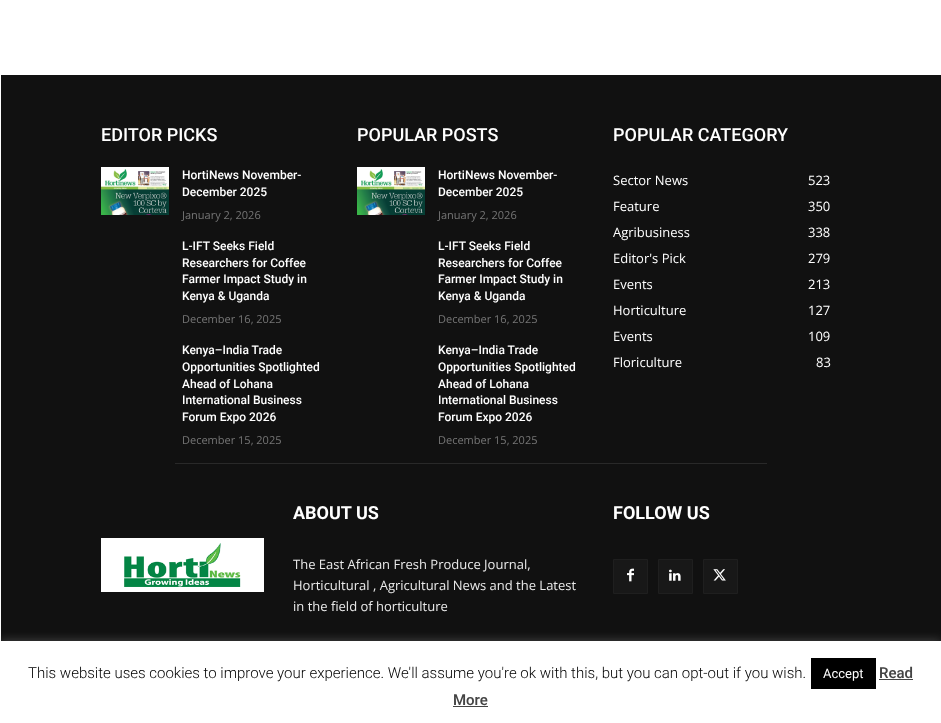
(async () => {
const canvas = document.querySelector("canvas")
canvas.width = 941
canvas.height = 723
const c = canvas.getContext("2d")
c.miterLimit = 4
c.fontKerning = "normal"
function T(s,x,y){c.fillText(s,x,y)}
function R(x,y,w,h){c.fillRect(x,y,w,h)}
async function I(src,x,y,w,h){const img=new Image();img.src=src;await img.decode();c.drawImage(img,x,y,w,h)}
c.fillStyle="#fff"
R(0,0,941,723)
c.fillStyle="#111"
R(1,75,940,566)
c.font="500 18px Roboto"
c.fillStyle="#fff"
T("EDITOR PICKS",101,141)
await I("1.png",101,167,68,48)
c.font="500 12px Roboto"
T("HortiNews November-",182,179)
T("December 2025",182,196)
c.font="11px Open Sans"
c.fillStyle="#767676"
T("January 2, 2026",182,219)
c.font="500 12px Roboto"
c.fillStyle="#fff"
T("L-IFT Seeks Field",182,250)
T("Researchers for Coffee",182,267)
T("Farmer Impact Study in",182,283)
T("Kenya & Uganda",182,300)
c.font="11px Open Sans"
c.fillStyle="#767676"
T("December 16, 2025",182,323)
c.font="500 12px Roboto"
c.fillStyle="#fff"
T("Kenya–India Trade",182,354)
T("Opportunities Spotlighted",182,371)
T("Ahead of Lohana",182,388)
T("International Business",182,404)
T("Forum Expo 2026",182,421)
c.font="11px Open Sans"
c.fillStyle="#767676"
T("December 15, 2025",182,444)
c.font="500 18px Roboto"
c.fillStyle="#fff"
T("POPULAR POSTS",357,141)
await I("1.png",357,167,68,48)
c.font="500 12px Roboto"
T("HortiNews November-",438,179)
T("December 2025",438,196)
c.font="11px Open Sans"
c.fillStyle="#767676"
T("January 2, 2026",438,219)
c.font="500 12px Roboto"
c.fillStyle="#fff"
T("L-IFT Seeks Field",438,250)
T("Researchers for Coffee",438,267)
T("Farmer Impact Study in",438,283)
T("Kenya & Uganda",438,300)
c.font="11px Open Sans"
c.fillStyle="#767676"
T("December 16, 2025",438,323)
c.font="500 12px Roboto"
c.fillStyle="#fff"
T("Kenya–India Trade",438,354)
T("Opportunities Spotlighted",438,371)
T("Ahead of Lohana",438,388)
T("International Business",438,404)
T("Forum Expo 2026",438,421)
c.font="11px Open Sans"
c.fillStyle="#767676"
T("December 15, 2025",438,444)
c.font="500 18px Roboto"
c.fillStyle="#fff"
T("POPULAR CATEGORY",613,141)
c.font="13px Open Sans"
T("Sector News",613,185)
T("523",808,185)
T("Feature",613,211)
T("350",808,211)
T("Agribusiness",613,237)
T("338",808,237)
T("Editor's Pick",613,263)
T("279",808,263)
T("Events",613,289)
T("213",808,289)
T("Horticulture",613,315)
T("127",808,315)
T("Events",613,341)
T("109",808,341)
T("Floriculture",613,367)
T("83",816,367)
c.fillStyle="#292929"
R(175,463,592,1)
c.font="bold 18px Roboto"
c.fillStyle="#fff"
T("ABOUT US",293,519)
c.font="13px Open Sans"
c.fillStyle="#eaeaea"
T("The East African Fresh Produce Journal,",293,569)
T("Horticultural , Agricultural News and the Latest",293,590)
T("in the field of horticulture",293,611)
c.font="bold 18px Roboto"
c.fillStyle="#fff"
T("FOLLOW US",613,519)
c.fillStyle="#181818"
c.beginPath()
c.rect(613.5,559.5,34,34)
c.fill()
c.strokeStyle="#1f1f1f"
c.stroke()
await I("2.png",627,568,7,14)
c.beginPath()
c.rect(658.5,559.5,34,34)
c.fill()
c.stroke()
await I("3.png",669,569,12,12)
c.beginPath()
c.rect(703.5,559.5,34,34)
c.fill()
c.stroke()
await I("4.png",713,569,13,12)
await I("5.png",101,538,163,54)
c.fillStyle="#acabab4d"
c.filter="blur(5px)"
c.beginPath()
c.rect(0,640,941,82)
c.fill()
c.filter="none"
c.fillStyle="#fff"
R(0,641,941,82)
c.font="300 15px Roboto"
c.fillStyle="#000"
T("This website uses cookies to improve your experience. We'll assume you're ok with this, but you can opt-out if you wish.",28,678)
R(811,658,65,31)
c.font="13px Roboto"
c.fillStyle="#fff"
T("Accept",823,678)
c.font="500 15px 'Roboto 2'"
c.fillStyle="#444"
T("Read",879,678)
R(879,679,34,1)
T("More",453,705)
R(453,706,35,1)
})()
